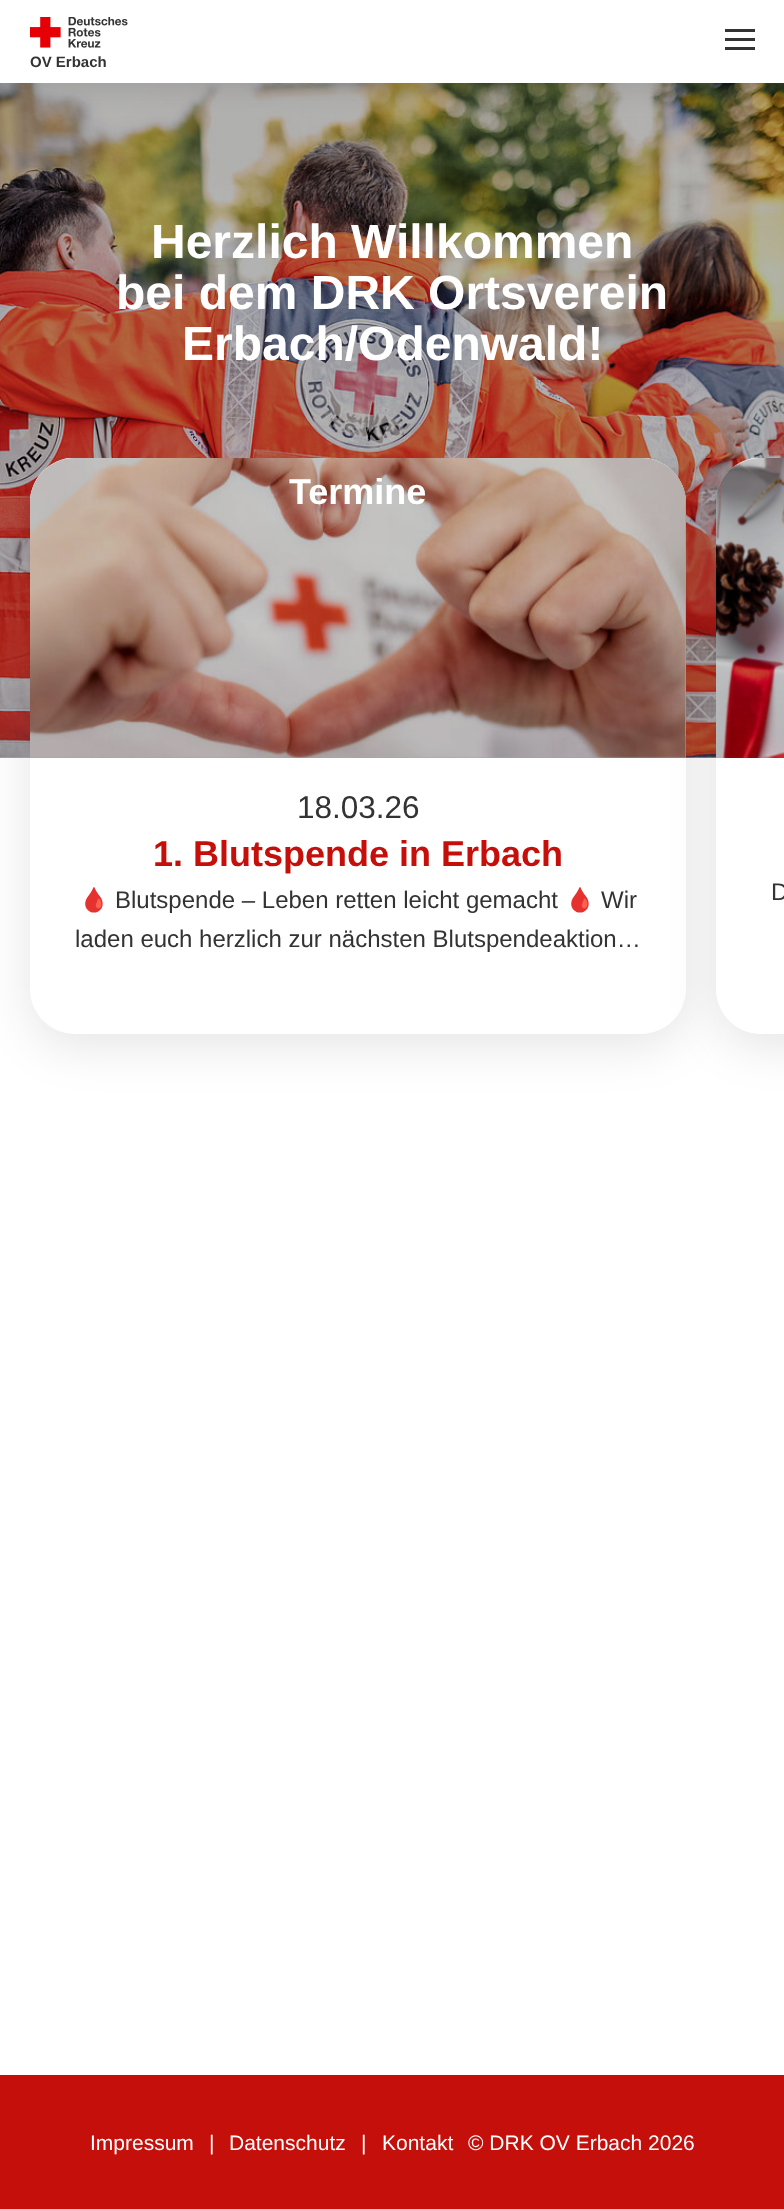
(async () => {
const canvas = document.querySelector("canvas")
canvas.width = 784
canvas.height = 2209
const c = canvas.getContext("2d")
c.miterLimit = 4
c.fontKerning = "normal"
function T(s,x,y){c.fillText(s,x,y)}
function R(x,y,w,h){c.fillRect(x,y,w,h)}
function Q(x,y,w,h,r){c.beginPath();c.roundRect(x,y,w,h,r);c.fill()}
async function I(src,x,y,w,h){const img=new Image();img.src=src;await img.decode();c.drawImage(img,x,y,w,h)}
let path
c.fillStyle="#fff"
R(0,0,784,2209)
c.fillStyle="#b3b3b3"
R(0,757,716,1)
await I("2.png",0,83,784,675)
c.fillStyle="#0000001a"
c.filter="blur(12px)"
c.beginPath()
c.rect(0,8,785,82)
c.fill()
c.filter="none"
c.fillStyle="#fff"
R(0,0,784,83)
c.fillStyle="#333"
R(725,29,30,3)
R(725,38,30,3)
R(725,47,30,3)
await I("1.png",30,17,98,31)
c.font="bold 15px Liberation Sans"
T("OV Erbach",30,67)
c.font="bold 48px Liberation Sans"
c.fillStyle="#fff"
T("Herzlich Willkommen",151,258)
T("bei dem DRK Ortsverein",116,309)
T("Erbach/Odenwald!",182,360)
c.save()
c.beginPath()
c.rect(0,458,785,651)
c.clip()
c.fillStyle="#0000001a"
c.filter="blur(24px)"
c.beginPath()
c.roundRect(30,470,656,576,45)
c.fill()
c.filter="none"
c.restore()
Q(30,458,656,576,45)
c.fillStyle="#ccc"
c.beginPath()
c.roundRect(30,458,656,300,[45,45,0,0])
c.fill()
await I("3.png",30,458,656,300)
c.fillStyle="#00000033"
c.beginPath()
c.roundRect(30,458,656,300,[45,45,0,0])
c.fill()
c.font="bold 36px Liberation Sans"
c.fillStyle="#fff"
T("Termine",289,504)
c.font="31.5px Liberation Sans"
c.fillStyle="#333"
T("18.03.26",297,818)
c.font="bold 36px Liberation Sans"
c.fillStyle="#c50f0a"
T("1. Blutspende in Erbach",153,866)
c.font="24px Noto Color Emoji"
c.fillStyle="#333"
T("🩸",79,908)
c.font="24px Liberation Sans"
T("Blutspende – Leben retten leicht gemacht",115,908)
c.font="24px Noto Color Emoji"
T("🩸",565,908)
c.font="24px Liberation Sans"
T("Wir",601,908)
T("laden euch herzlich zur nächsten Blutspendeaktion…",75,947)
c.save()
c.beginPath()
c.rect(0,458,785,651)
c.clip()
c.fillStyle="#0000001a"
c.filter="blur(24px)"
c.beginPath()
c.roundRect(716,470,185,576,45)
c.fill()
c.filter="none"
c.restore()
c.fillStyle="#fff"
path = new Path2D("M761 458h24v576h-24c-25 0-45-20-45-45v-486c0-25 20-45 45-45z")
c.fill(path)
await I("4.png",716,458,68,300)
c.fillStyle="#00000033"
path = new Path2D("M761 458h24v300h-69v-255c0-25 20-45 45-45z")
c.fill(path)
c.fillStyle="#333"
T("D",771,900)
c.fillStyle="#c50f0a"
R(0,2075,784,134)
c.font="21px Liberation Sans"
c.fillStyle="#fff"
T("Impressum",90,2150)
T("|",209,2150)
T("Datenschutz",229,2150)
T("|",361,2150)
T("Kontakt",382,2150)
T("© DRK OV Erbach 2026",468,2150)
})()
